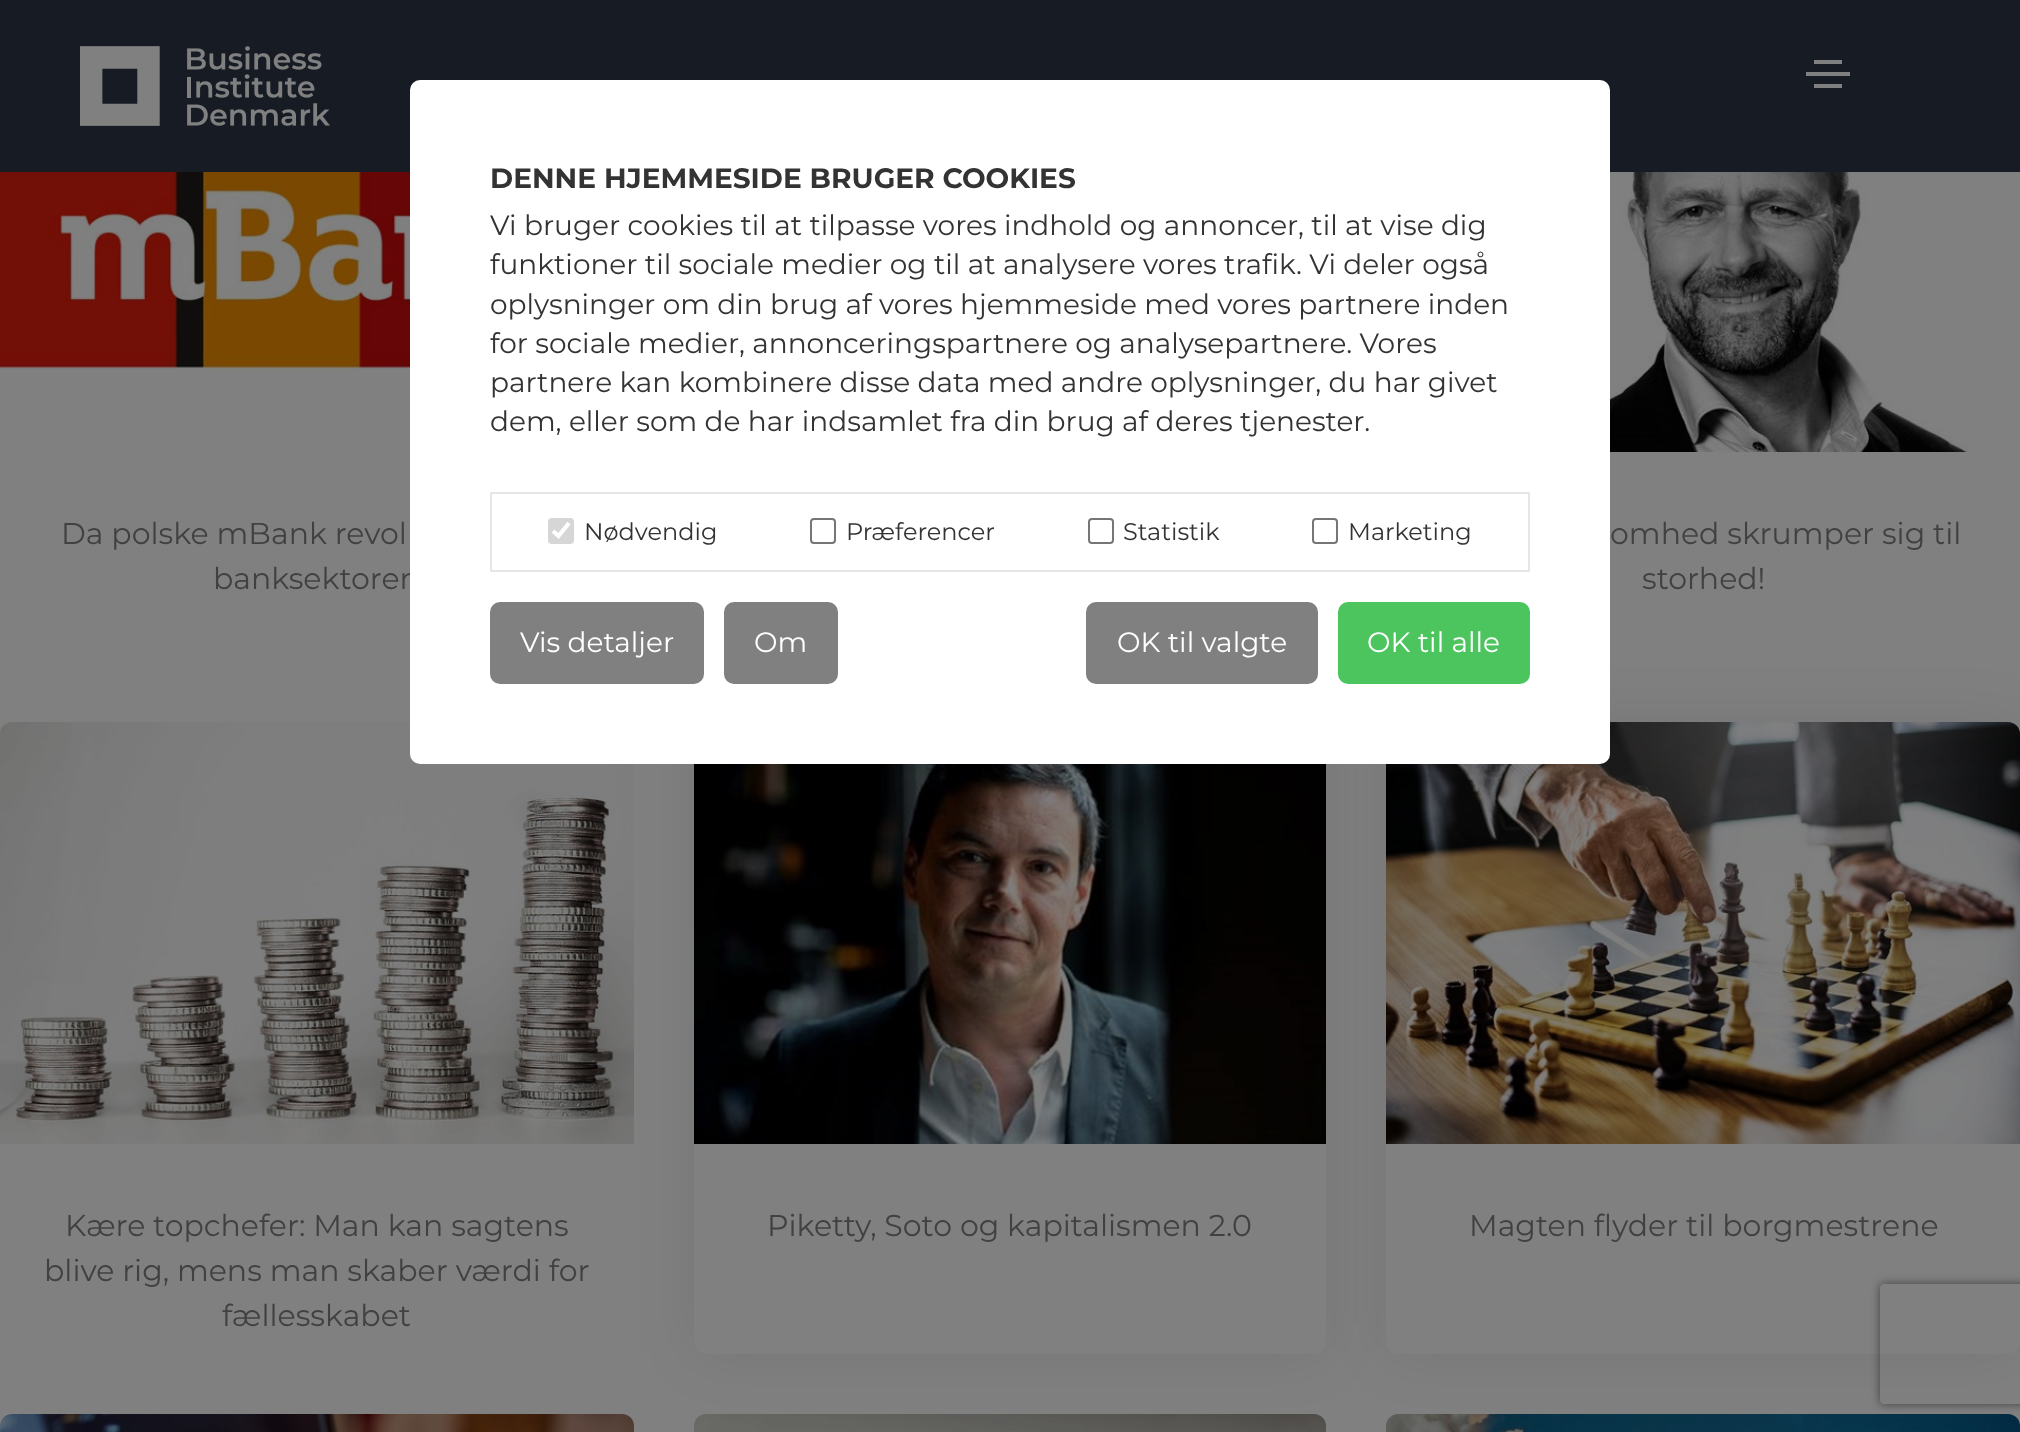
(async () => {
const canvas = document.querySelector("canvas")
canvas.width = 2020
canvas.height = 1432
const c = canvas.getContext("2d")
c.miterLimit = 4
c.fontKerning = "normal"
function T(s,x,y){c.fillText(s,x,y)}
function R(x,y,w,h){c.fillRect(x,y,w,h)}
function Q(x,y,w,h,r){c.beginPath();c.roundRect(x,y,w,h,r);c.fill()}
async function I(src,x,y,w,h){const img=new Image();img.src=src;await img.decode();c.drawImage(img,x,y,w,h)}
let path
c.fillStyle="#808080"
R(0,0,2020,1432)
c.fillStyle="#161b24"
R(0,0,2020,172)
await I("1.png",80,46,250,80)
c.fillStyle="#808080"
R(1814,60,28,4)
R(1806,72,44,4)
R(1814,84,28,4)
c.font="30px Montserrat"
c.fillStyle="#414141"
T("banksektoren",213,589)
await I("4.png",0,722,634,422)
c.fillStyle="#00000014"
c.filter="blur(30px)"
c.beginPath()
c.roundRect(694,722,632,632,12)
c.fill()
c.filter="none"
await I("5.png",694,764,632,380)
c.fillStyle="#808080"
c.beginPath()
c.roundRect(694,1144,632,210,[0,0,12,12])
c.fill()
c.fillStyle="#00000014"
c.filter="blur(30px)"
c.beginPath()
c.roundRect(1386,722,634,632,12)
c.fill()
c.filter="none"
await I("6.png",1386,722,634,422)
c.fillStyle="#fff"
Q(410,80,1200,684,10)
c.font="bold 28px Montserrat"
c.fillStyle="#333"
T("DENNE HJEMMESIDE BRUGER COOKIES",490,188)
c.font="28px Montserrat"
T("Vi bruger cookies til at tilpasse vores indhold og annoncer, til at vise dig",490,235)
T("funktioner til sociale medier og til at analysere vores trafik. Vi deler også",490,274)
T("oplysninger om din brug af vores hjemmeside med vores partnere inden",490,314)
T("for sociale medier, annonceringspartnere og analysepartnere. Vores",490,353)
T("partnere kan kombinere disse data med andre oplysninger, du har givet",490,392)
T("dem, eller som de har indsamlet fra din brug af deres tjenester.",490,431)
c.strokeStyle="#e6e6e6"
c.lineWidth=2
c.strokeRect(491,493,1038,78)
c.fillStyle="#d6d6d6"
Q(548,518,26,26,4)
path = new Path2D("M553 531l5.5 5l10.5-13")
c.strokeStyle="#fff"
c.lineWidth=4.2
c.stroke(path)
c.font="24px Montserrat"
c.fillStyle="#333"
T("Nødvendig",584,540)
c.beginPath()
c.roundRect(811,519,24,24,3)
c.strokeStyle="#767676"
c.lineWidth=2
c.stroke()
T("Præferencer",846,540)
c.beginPath()
c.roundRect(1089,519,24,24,3)
c.stroke()
T("Statistik",1123,540)
c.beginPath()
c.roundRect(1313,519,24,24,3)
c.stroke()
T("Marketing",1348,540)
c.fillStyle="#808080"
Q(490,602,214,82,10)
c.font="28px Montserrat"
c.fillStyle="#fff"
T("Vis detaljer",520,652)
c.fillStyle="#808080"
Q(724,602,114,82,10)
c.fillStyle="#fff"
T("Om",754,652)
c.fillStyle="#808080"
Q(1086,602,232,82,10)
c.fillStyle="#fff"
T("OK til valgte",1117,652)
c.fillStyle="#4dc55f"
Q(1338,602,192,82,10)
c.fillStyle="#fff"
T("OK til alle",1367,652)
await I("2.png",0,172,410,197)
c.font="30px Montserrat"
c.fillStyle="#414141"
T("Da polske mBank revol",61,544)
await I("3.png",1610,172,359,280)
T("omhed skrumper sig til",1610,544)
T("storhed!",1642,589)
T("Kære topchefer: Man kan sagtens",65,1236)
T("blive rig, mens man skaber værdi for",44,1281)
T("fællesskabet",222,1326)
T("Piketty, Soto og kapitalismen 2.0",767,1236)
c.fillStyle="#808080"
c.beginPath()
c.roundRect(1386,1144,634,210,[0,0,12,12])
c.fill()
c.fillStyle="#414141"
T("Magten flyder til borgmestrene",1469,1236)
await I("7.png",0,1414,634,18)
await I("8.png",694,1414,632,18)
await I("9.png",1386,1414,634,18)
c.save()
path = new Path2D("M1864 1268h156v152h-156zm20 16h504c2 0 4 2 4 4v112c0 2-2 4-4 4h-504c-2 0-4-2-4-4v-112c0-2 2-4 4-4z")
c.clip(path,"evenodd")
c.fillStyle="#404040"
c.filter="blur(5px)"
c.beginPath()
c.roundRect(1880,1284,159,120,4)
c.fill()
c.filter="none"
c.restore()
})()
